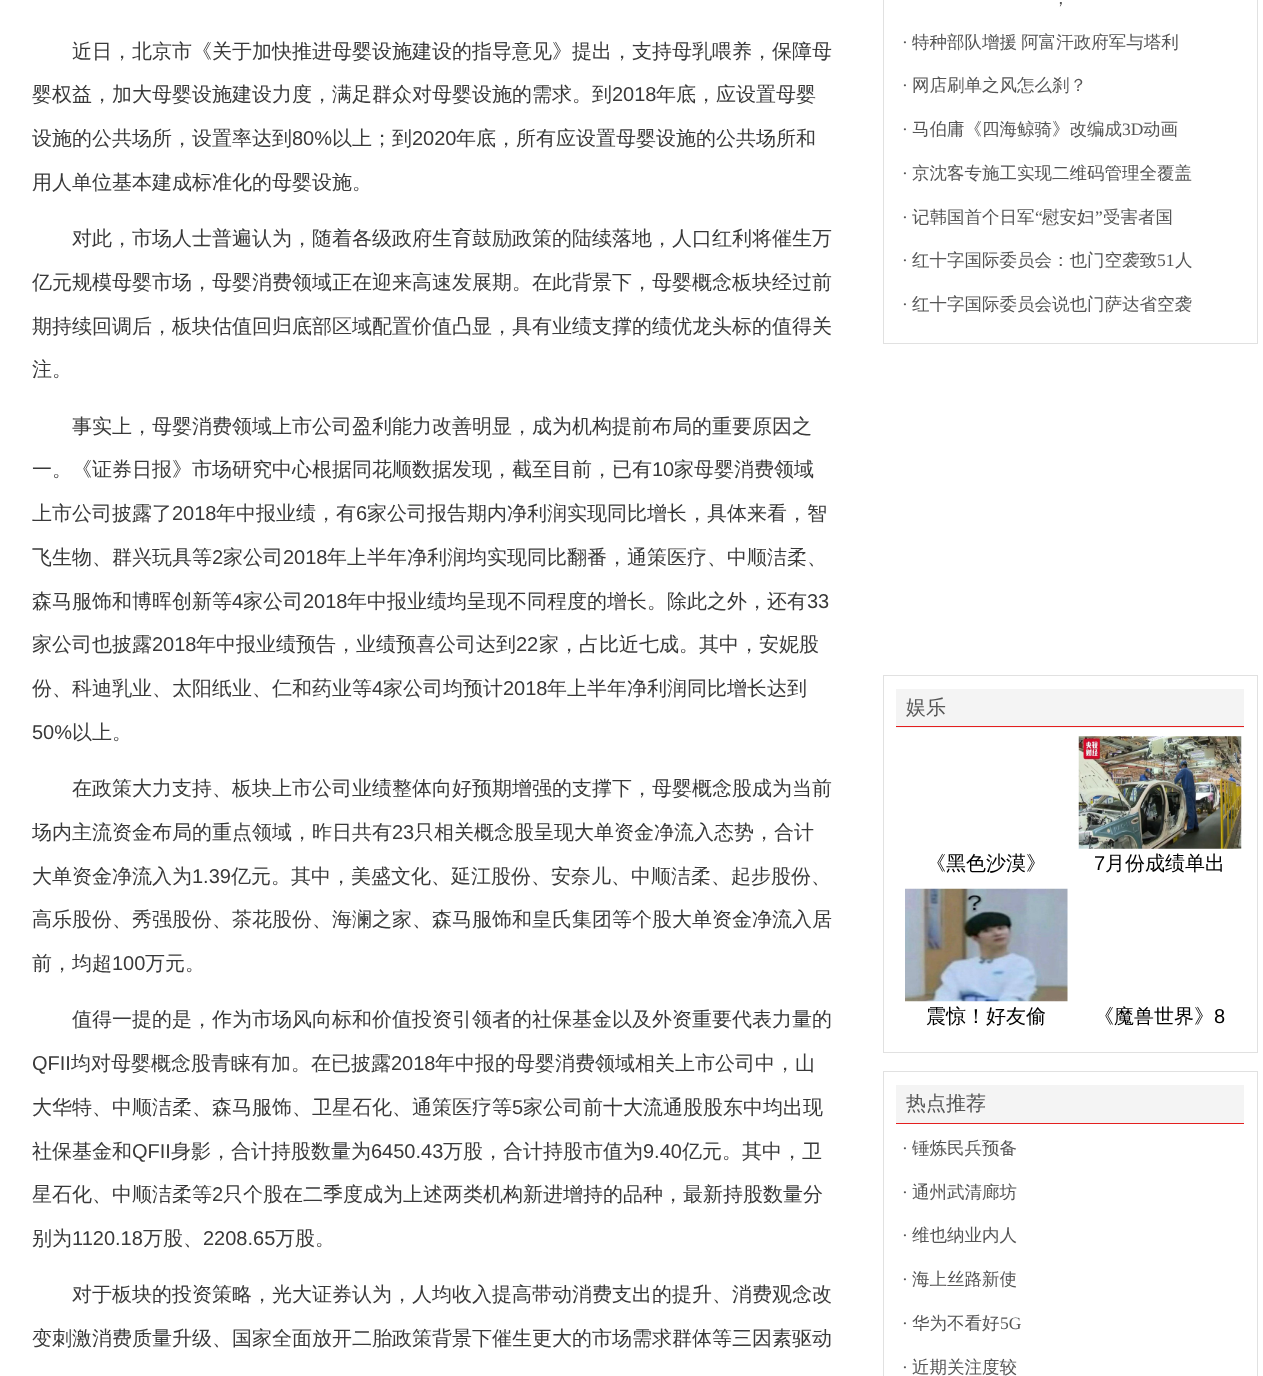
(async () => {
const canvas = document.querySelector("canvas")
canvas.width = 1263
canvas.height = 1376
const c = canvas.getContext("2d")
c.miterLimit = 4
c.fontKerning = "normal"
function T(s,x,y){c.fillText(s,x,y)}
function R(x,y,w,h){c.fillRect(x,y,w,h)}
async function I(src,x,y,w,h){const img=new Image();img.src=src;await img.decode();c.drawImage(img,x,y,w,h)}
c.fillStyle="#fff"
R(0,0,1263,1376)
c.font="500 20px WenQuanYi Zen Hei"
c.fillStyle="#393939"
T("近日，北京市《关于加快推进母婴设施建设的指导意见》提出，支持母乳喂养，保障母",72,58)
T("婴权益，加大母婴设施建设力度，满足群众对母婴设施的需求。到",32,101)
c.font="20px Liberation Sans"
T("2018",612,101)
c.font="500 20px WenQuanYi Zen Hei"
T("年底，应设置母婴",656,101)
T("设施的公共场所，设置率达到",32,145)
c.font="20px Liberation Sans"
T("80%",292,145)
c.font="500 20px WenQuanYi Zen Hei"
T("以上；到",332,145)
c.font="20px Liberation Sans"
T("2020",412,145)
c.font="500 20px WenQuanYi Zen Hei"
T("年底，所有应设置母婴设施的公共场所和",456,145)
T("用人单位基本建成标准化的母婴设施。",32,189)
T("对此，市场人士普遍认为，随着各级政府生育鼓励政策的陆续落地，人口红利将催生万",72,245)
T("亿元规模母婴市场，母婴消费领域正在迎来高速发展期。在此背景下，母婴概念板块经过前",32,289)
T("期持续回调后，板块估值回归底部区域配置价值凸显，具有业绩支撑的绩优龙头标的值得关",32,333)
T("注。",32,376)
T("事实上，母婴消费领域上市公司盈利能力改善明显，成为机构提前布局的重要原因之",72,433)
T("一。《证券日报》市场研究中心根据同花顺数据发现，截至目前，已有",32,476)
c.font="20px Liberation Sans"
T("10",652,476)
c.font="500 20px WenQuanYi Zen Hei"
T("家母婴消费领域",674,476)
T("上市公司披露了",32,520)
c.font="20px Liberation Sans"
T("2018",172,520)
c.font="500 20px WenQuanYi Zen Hei"
T("年中报业绩，有",216,520)
c.font="20px Liberation Sans"
T("6",356,520)
c.font="500 20px WenQuanYi Zen Hei"
T("家公司报告期内净利润实现同比增长，具体来看，智",367,520)
T("飞生物、群兴玩具等",32,564)
c.font="20px Liberation Sans"
T("2",212,564)
c.font="500 20px WenQuanYi Zen Hei"
T("家公司",223,564)
c.font="20px Liberation Sans"
T("2018",283,564)
c.font="500 20px WenQuanYi Zen Hei"
T("年上半年净利润均实现同比翻番，通策医疗、中顺洁柔、",327,564)
T("森马服饰和博晖创新等",32,608)
c.font="20px Liberation Sans"
T("4",232,608)
c.font="500 20px WenQuanYi Zen Hei"
T("家公司",243,608)
c.font="20px Liberation Sans"
T("2018",303,608)
c.font="500 20px WenQuanYi Zen Hei"
T("年中报业绩均呈现不同程度的增长。除此之外，还有",347,608)
c.font="20px Liberation Sans"
T("33",807,608)
c.font="500 20px WenQuanYi Zen Hei"
T("家公司也披露",32,651)
c.font="20px Liberation Sans"
T("2018",152,651)
c.font="500 20px WenQuanYi Zen Hei"
T("年中报业绩预告，业绩预喜公司达到",196,651)
c.font="20px Liberation Sans"
T("22",516,651)
c.font="500 20px WenQuanYi Zen Hei"
T("家，占比近七成。其中，安妮股",539,651)
T("份、科迪乳业、太阳纸业、仁和药业等",32,695)
c.font="20px Liberation Sans"
T("4",372,695)
c.font="500 20px WenQuanYi Zen Hei"
T("家公司均预计",383,695)
c.font="20px Liberation Sans"
T("2018",503,695)
c.font="500 20px WenQuanYi Zen Hei"
T("年上半年净利润同比增长达到",547,695)
c.font="20px Liberation Sans"
T("50%",32,739)
c.font="500 20px WenQuanYi Zen Hei"
T("以上。",72,739)
T("在政策大力支持、板块上市公司业绩整体向好预期增强的支撑下，母婴概念股成为当前",72,795)
T("场内主流资金布局的重点领域，昨日共有",32,839)
c.font="20px Liberation Sans"
T("23",392,839)
c.font="500 20px WenQuanYi Zen Hei"
T("只相关概念股呈现大单资金净流入态势，合计",414,839)
T("大单资金净流入为",32,883)
c.font="20px Liberation Sans"
T("1.39",192,883)
c.font="500 20px WenQuanYi Zen Hei"
T("亿元。其中，美盛文化、延江股份、安奈儿、中顺洁柔、起步股份、",231,883)
T("高乐股份、秀强股份、茶花股份、海澜之家、森马服饰和皇氏集团等个股大单资金净流入居",32,926)
T("前，均超",32,970)
c.font="20px Liberation Sans"
T("100",112,970)
c.font="500 20px WenQuanYi Zen Hei"
T("万元。",145,970)
T("值得一提的是，作为市场风向标和价值投资引领者的社保基金以及外资重要代表力量的",72,1026)
c.font="20px Liberation Sans"
T("QFII",32,1070)
c.font="500 20px WenQuanYi Zen Hei"
T("均对母婴概念股青睐有加。在已披露",71,1070)
c.font="20px Liberation Sans"
T("2018",391,1070)
c.font="500 20px WenQuanYi Zen Hei"
T("年中报的母婴消费领域相关上市公司中，山",435,1070)
T("大华特、中顺洁柔、森马服饰、卫星石化、通策医疗等",32,1114)
c.font="20px Liberation Sans"
T("5",512,1114)
c.font="500 20px WenQuanYi Zen Hei"
T("家公司前十大流通股股东中均出现",523,1114)
T("社保基金和",32,1158)
c.font="20px Liberation Sans"
T("QFII",132,1158)
c.font="500 20px WenQuanYi Zen Hei"
T("身影，合计持股数量为",171,1158)
c.font="20px Liberation Sans"
T("6450.43",371,1158)
c.font="500 20px WenQuanYi Zen Hei"
T("万股，合计持股市值为",443,1158)
c.font="20px Liberation Sans"
T("9.40",643,1158)
c.font="500 20px WenQuanYi Zen Hei"
T("亿元。其中，卫",682,1158)
T("星石化、中顺洁柔等",32,1201)
c.font="20px Liberation Sans"
T("2",212,1201)
c.font="500 20px WenQuanYi Zen Hei"
T("只个股在二季度成为上述两类机构新进增持的品种，最新持股数量分",223,1201)
T("别为",32,1245)
c.font="20px Liberation Sans"
T("1120.18",72,1245)
c.font="500 20px WenQuanYi Zen Hei"
T("万股、",143,1245)
c.font="20px Liberation Sans"
T("2208.65",203,1245)
c.font="500 20px WenQuanYi Zen Hei"
T("万股。",275,1245)
T("对于板块的投资策略，光大证券认为，人均收入提高带动消费支出的提升、消费观念改",72,1301)
T("变刺激消费质量升级、国家全面放开二胎政策背景下催生更大的市场需求群体等三因素驱动",32,1345)
c.strokeStyle="#e1e1e1"
c.strokeRect(883.5,-.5,374,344)
c.font="500 17.5px WenQuanYi Zen Hei"
c.fillStyle="#555"
T("，",1052,4)
c.font="17.5px Liberation Serif"
T("·",902,48)
c.wordSpacing="-1px"
c.font="500 17.5px WenQuanYi Zen Hei"
T("特种部队增援 阿富汗政府军与塔利",912,48)
c.wordSpacing="0px"
c.font="17.5px Liberation Serif"
T("·",902,91)
c.font="500 17.5px WenQuanYi Zen Hei"
T("网店刷单之风怎么刹？",912,91)
c.font="17.5px Liberation Serif"
T("·",902,135)
c.font="500 17.5px WenQuanYi Zen Hei"
T("马伯庸《四海鲸骑》改编成",912,135)
c.font="17.5px Liberation Serif"
T("3D",1122,135)
c.font="500 17.5px WenQuanYi Zen Hei"
T("动画",1143,135)
c.font="17.5px Liberation Serif"
T("·",902,179)
c.font="500 17.5px WenQuanYi Zen Hei"
T("京沈客专施工实现二维码管理全覆盖",912,179)
T("记韩国首个日军",912,223)
c.font="17.5px Liberation Serif"
T("“",1035,223)
c.font="500 17.5px WenQuanYi Zen Hei"
T("慰安妇",1042,223)
c.font="17.5px Liberation Serif"
T("”",1095,223)
c.font="500 17.5px WenQuanYi Zen Hei"
T("受害者国",1103,223)
c.font="17.5px Liberation Serif"
T("·",902,223)
T("·",902,266)
c.font="500 17.5px WenQuanYi Zen Hei"
T("红十字国际委员会：也门空袭致",912,266)
c.font="17.5px Liberation Serif"
T("51",1157,266)
c.font="500 17.5px WenQuanYi Zen Hei"
T("人",1175,266)
c.font="17.5px Liberation Serif"
T("·",902,310)
c.font="500 17.5px WenQuanYi Zen Hei"
T("红十字国际委员会说也门萨达省空袭",912,310)
c.strokeRect(883.5,675.5,374,377)
c.fillStyle="#f4f4f4"
R(896,689,348,39)
c.fillStyle="#e41f1f"
R(896,726,348,1)
c.font="500 20px WenQuanYi Zen Hei"
c.fillStyle="#555"
T("娱乐",906,714)
c.fillStyle="#000"
T("《黑色沙漠》",926,870)
await I("1.png",1078,736,164,113)
c.font="20px Liberation Sans"
T("7",1094,870)
c.font="500 20px WenQuanYi Zen Hei"
T("月份成绩单出",1105,870)
await I("2.png",905,888,163,114)
T("震惊！好友偷",926,1023)
T("《魔兽世界》",1094,1023)
c.font="20px Liberation Sans"
T("8",1214,1023)
c.strokeRect(883.5,1071.5,374,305)
c.fillStyle="#f4f4f4"
R(896,1085,348,38)
c.fillStyle="#e41f1f"
R(896,1123,348,1)
c.font="500 20px WenQuanYi Zen Hei"
c.fillStyle="#555"
T("热点推荐",906,1110)
c.font="17.5px Liberation Serif"
T("·",902,1154)
c.font="500 17.5px WenQuanYi Zen Hei"
T("锤炼民兵预备",912,1154)
c.font="17.5px Liberation Serif"
T("·",902,1198)
c.font="500 17.5px WenQuanYi Zen Hei"
T("通州武清廊坊",912,1198)
c.font="17.5px Liberation Serif"
T("·",902,1241)
c.font="500 17.5px WenQuanYi Zen Hei"
T("维也纳业内人",912,1241)
c.font="17.5px Liberation Serif"
T("·",902,1285)
c.font="500 17.5px WenQuanYi Zen Hei"
T("海上丝路新使",912,1285)
c.font="17.5px Liberation Serif"
T("·",902,1329)
c.font="500 17.5px WenQuanYi Zen Hei"
T("华为不看好",912,1329)
c.font="17.5px Liberation Serif"
T("5G",1000,1329)
T("·",902,1373)
c.font="500 17.5px WenQuanYi Zen Hei"
T("近期关注度较",912,1373)
})()
